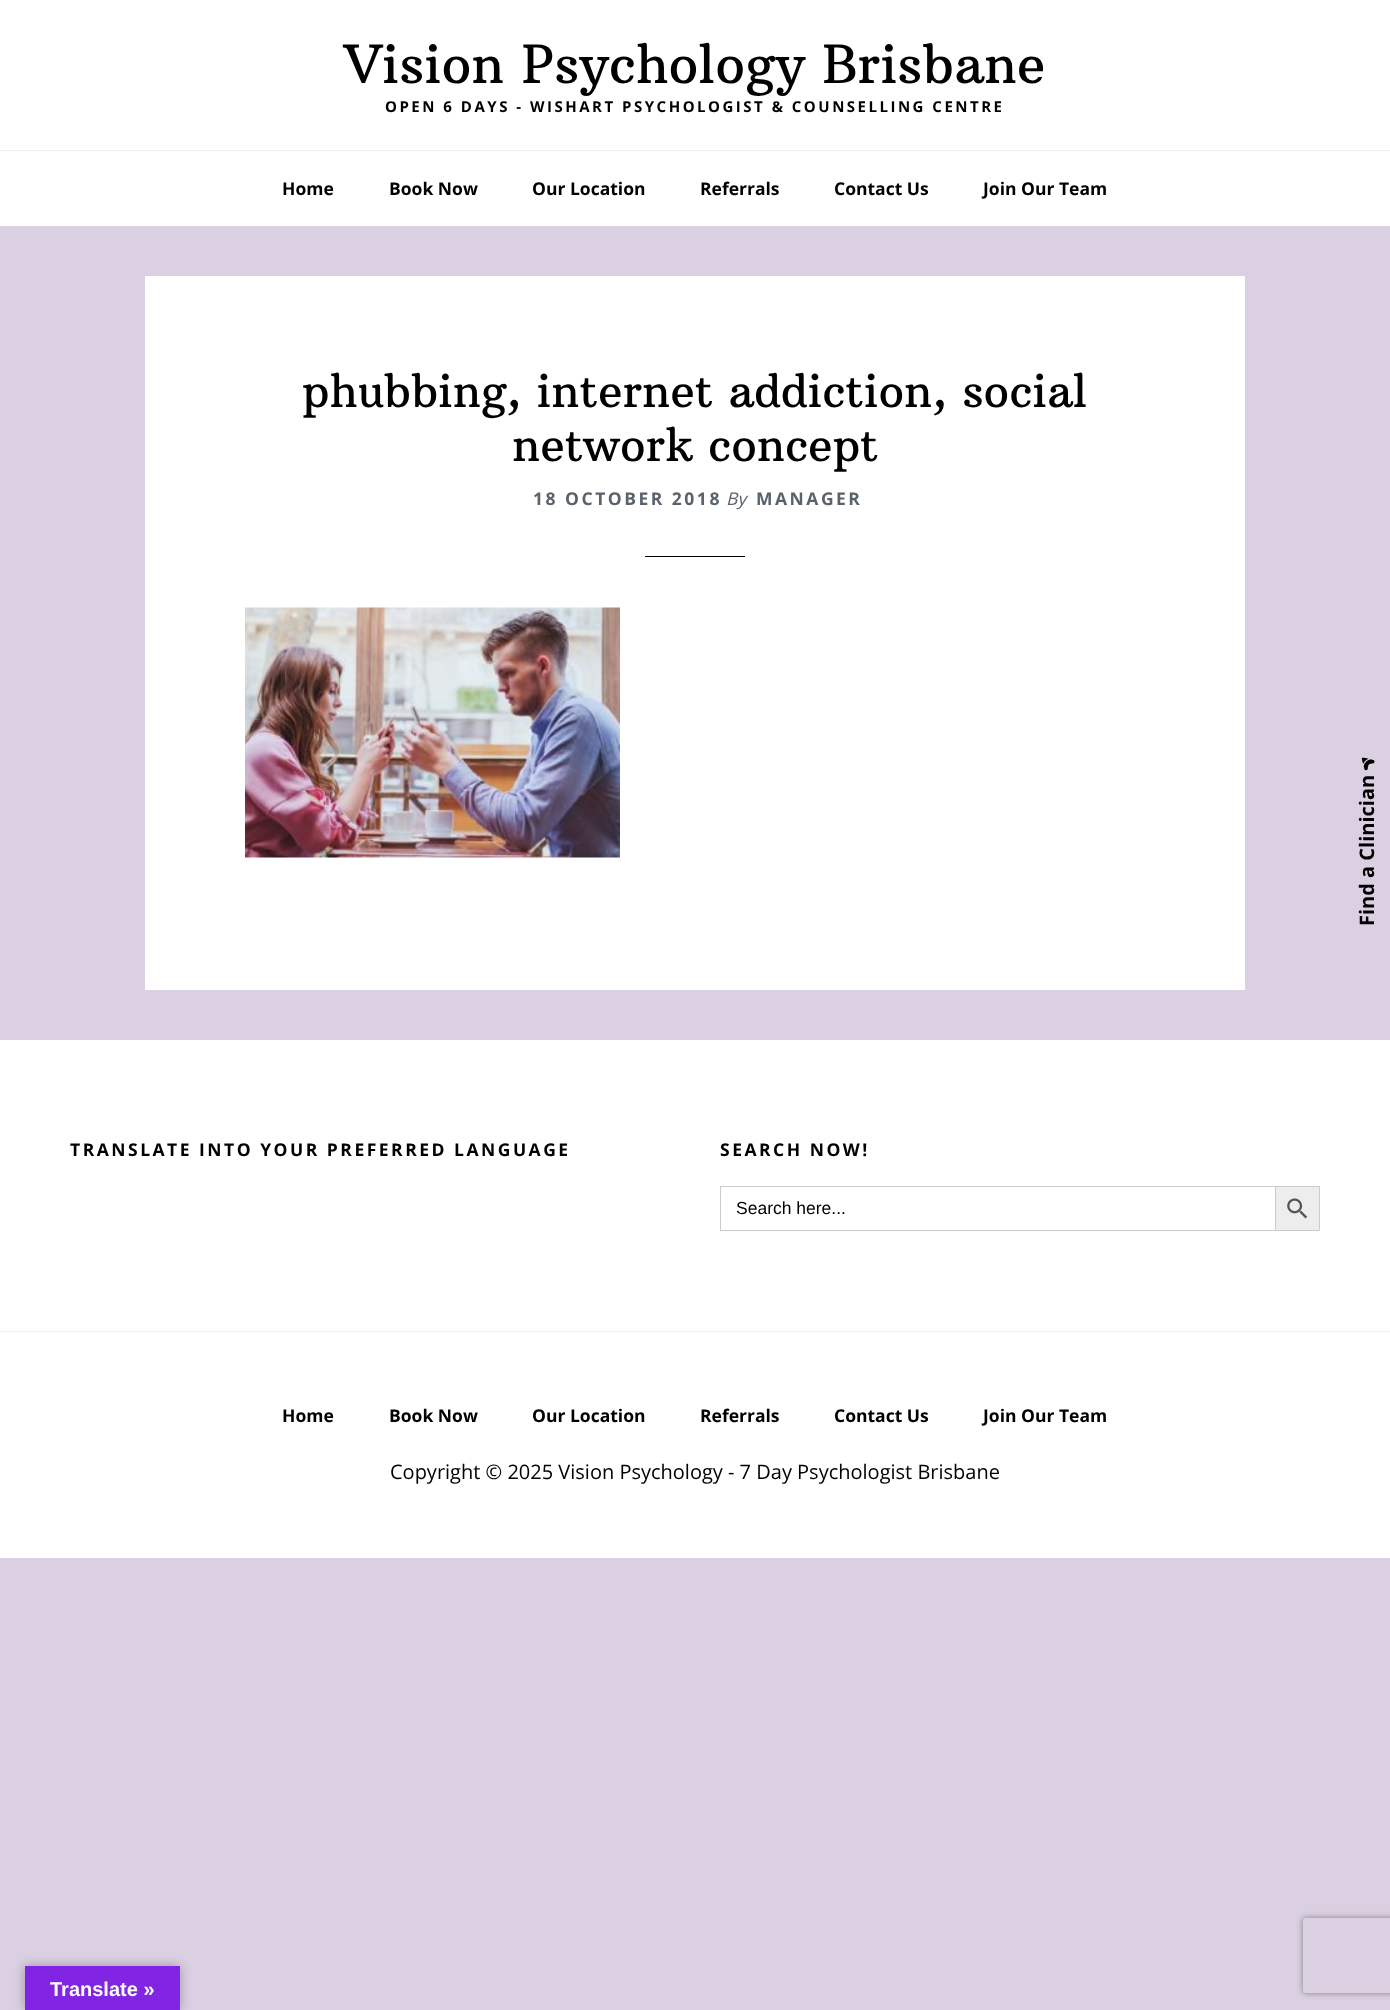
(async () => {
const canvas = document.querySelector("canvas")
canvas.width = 1390
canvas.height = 2010
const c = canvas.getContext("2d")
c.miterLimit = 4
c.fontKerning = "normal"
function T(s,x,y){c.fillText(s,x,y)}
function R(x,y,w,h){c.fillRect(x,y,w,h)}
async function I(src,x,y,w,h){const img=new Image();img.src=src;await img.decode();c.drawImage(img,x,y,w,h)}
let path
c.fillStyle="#dad0e2"
R(0,0,1390,2010)
c.fillStyle="#fff"
R(0,0,1390,150)
c.font="52.5px Arbutus Slab"
c.fillStyle="#000"
T("Vision Psychology Brisbane",344,83)
c.letterSpacing="2.5px"
c.font="bold 15px Open Sans"
T("OPEN 6 DAYS - WISHART PSYCHOLOGIST & COUNSELLING CENTRE",385,112)
c.fillStyle="#fff"
R(0,151,1390,75)
c.fillStyle="#eee"
R(0,150,1390,1)
c.letterSpacing="0px"
c.font="bold 17.5px Open Sans"
c.fillStyle="#000"
T("Home",282,195)
T("Book Now",389,195)
T("Our Location",532,195)
T("Referrals",700,195)
T("Contact Us",834,195)
T("Join Our Team",983,195)
c.fillStyle="#fff"
R(145,276,1100,714)
c.font="45px Arbutus Slab"
c.fillStyle="#000"
T("phubbing, internet addiction, social",302,407)
T("network concept",512,461)
c.letterSpacing="2.5px"
c.font="bold 17.5px Open Sans"
c.fillStyle="#5a636c"
T("18 OCTOBER 2018",533,505)
c.letterSpacing="0px"
c.font="italic 17.5px Open Sans"
T("By",726,505)
c.letterSpacing="2.5px"
c.font="bold 17.5px Open Sans"
T("MANAGER",756,505)
c.fillStyle="#000"
R(645,556,100,1)
await I("1.png",245,607,375,251)
c.fillStyle="#fff"
R(0,1040,1390,291)
c.fillStyle="#000"
T("TRANSLATE INTO YOUR PREFERRED LANGUAGE",70,1156)
T("SEARCH NOW!",720,1156)
c.fillStyle="#ccc"
R(720,1186,555,1)
R(720,1230,555,1)
R(720,1186,1,45)
c.letterSpacing="0px"
c.font="17.5px Liberation Sans"
c.fillStyle="#000"
T("Search here...",736,1214)
c.fillStyle="#ededed"
c.beginPath()
c.rect(1275.5,1186.5,44,44)
c.fill()
c.strokeStyle="#ccc"
c.stroke()
await I("2.png",1287,1198,21,21)
c.fillStyle="#fff"
R(0,1332,1390,226)
c.fillStyle="#eee"
R(0,1331,1390,1)
c.font="bold 17.5px Open Sans"
c.fillStyle="#000"
T("Home",282,1422)
T("Book Now",389,1422)
T("Our Location",532,1422)
T("Referrals",700,1422)
T("Contact Us",834,1422)
T("Join Our Team",983,1422)
c.font="20px Open Sans"
T("Copyright © 2025 Vision Psychology - 7 Day Psychologist Brisbane",390,1479)
await I("3.png",1361,757,14,14)
c.font="bold 20px Open Sans"
c.save()
c.translate(1374,926)
c.rotate(-90 * Math.PI / 180)
c.fillText("Find a Clinician",0,0)
c.restore()
c.fillStyle="#0000004d"
c.filter="blur(5.5px)"
c.beginPath()
c.rect(25,1966,155,44)
c.fill()
c.filter="none"
c.fillStyle="#8224e3"
R(25,1966,155,44)
c.font="bold 20px Liberation Sans"
c.fillStyle="#fff"
T("Translate »",50,1996)
c.save()
path = new Path2D("M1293 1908h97v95h-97zm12.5 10h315c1.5 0 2.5 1 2.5 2.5v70c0 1.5-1 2.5-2.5 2.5h-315c-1.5 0-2.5-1-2.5-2.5v-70c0-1.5 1-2.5 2.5-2.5z")
c.clip(path,"evenodd")
c.fillStyle="#808080"
c.filter="blur(3px)"
c.beginPath()
c.roundRect(1303,1918,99,75,2.5)
c.fill()
c.filter="none"
c.restore()
})()
